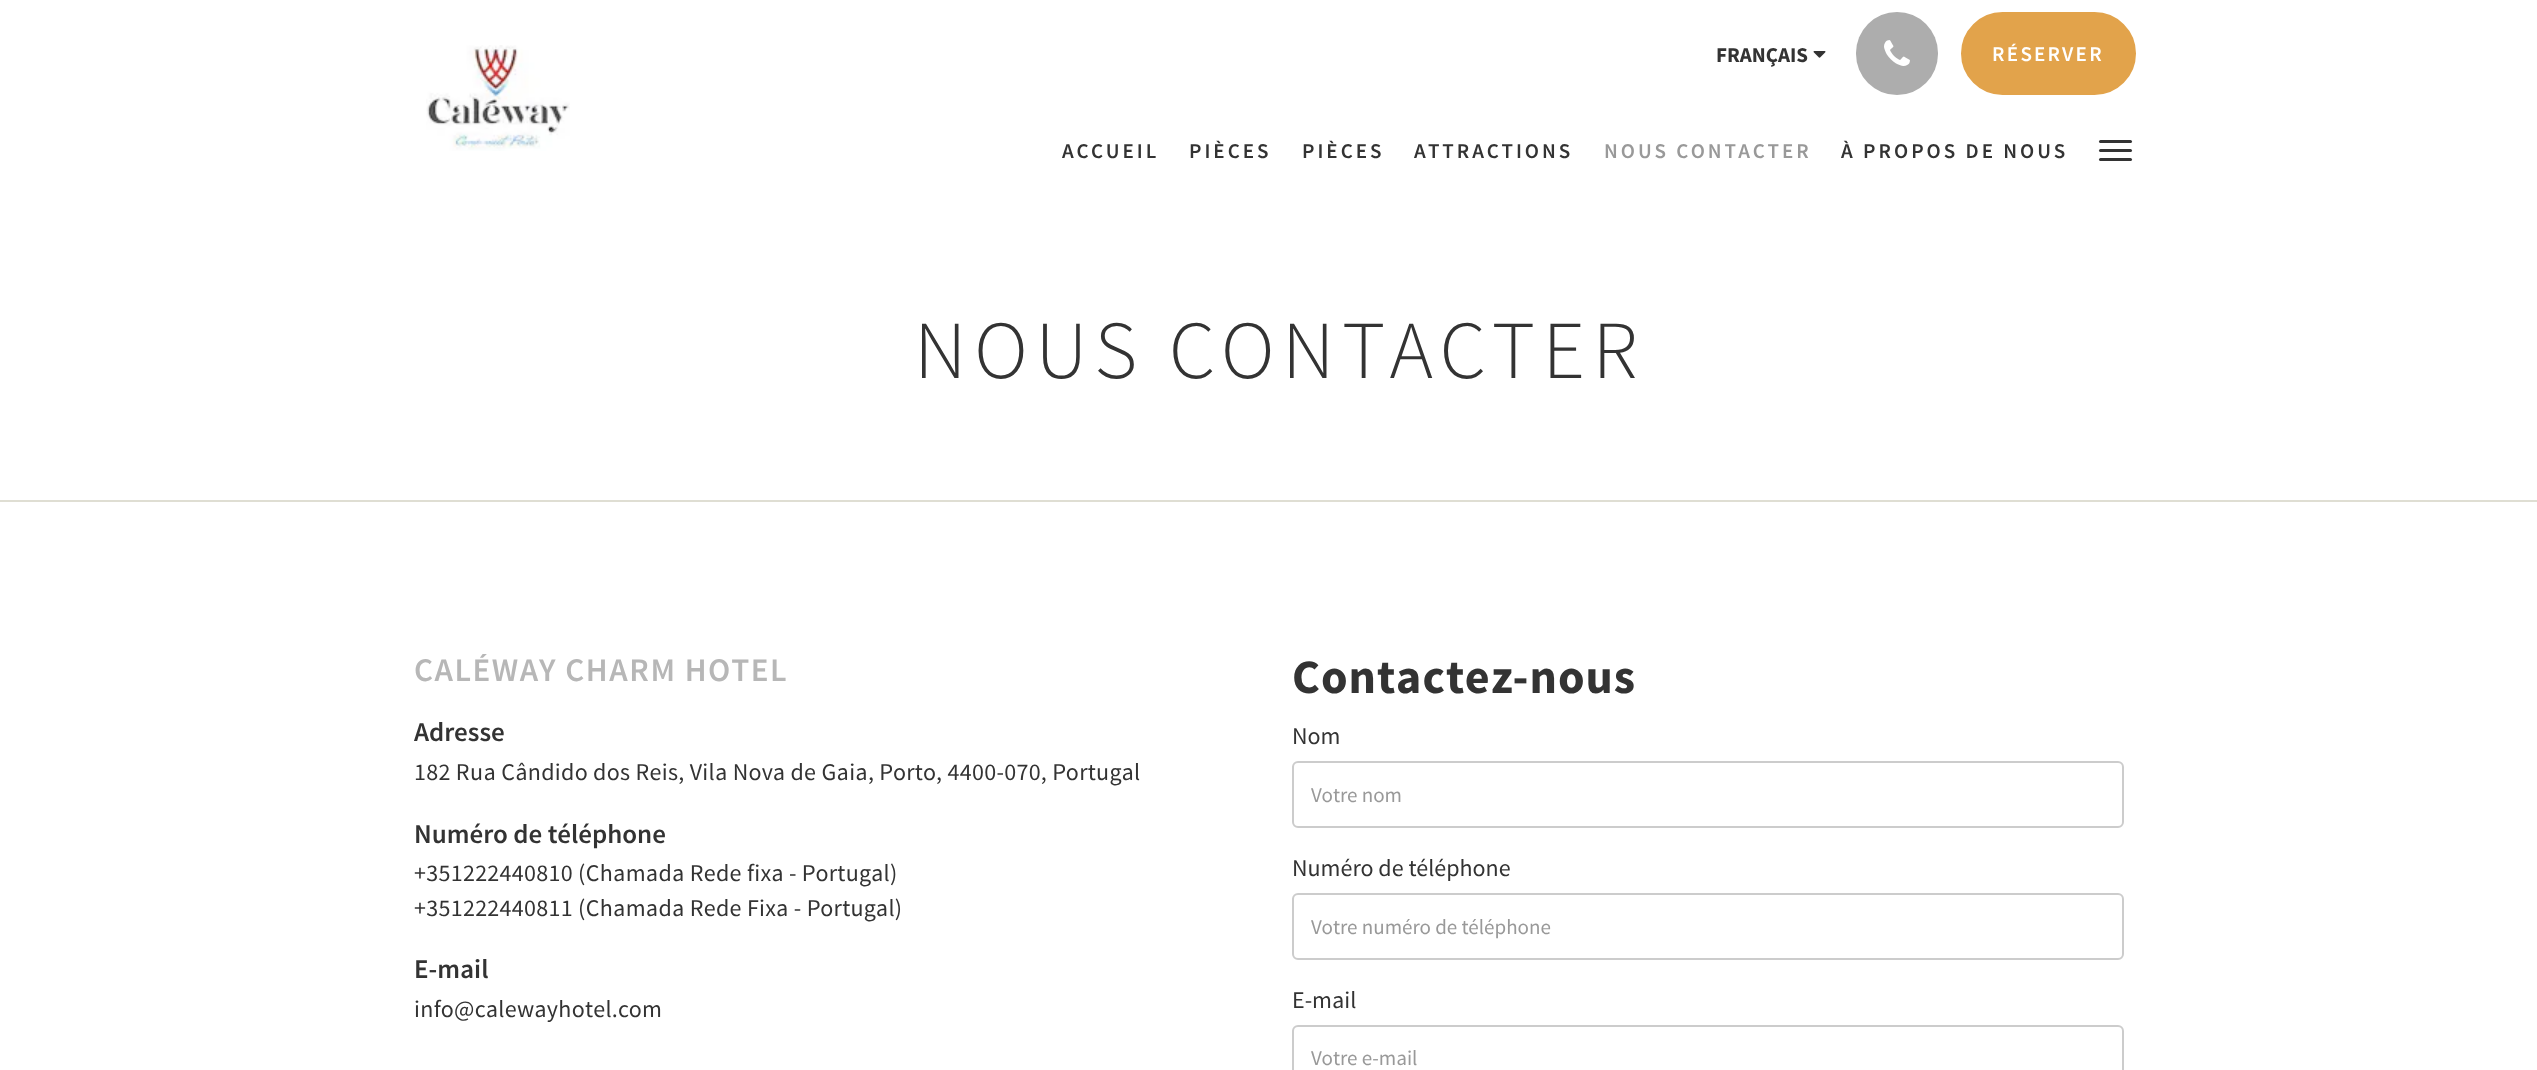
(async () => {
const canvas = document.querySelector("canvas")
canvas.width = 2537
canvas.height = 1070
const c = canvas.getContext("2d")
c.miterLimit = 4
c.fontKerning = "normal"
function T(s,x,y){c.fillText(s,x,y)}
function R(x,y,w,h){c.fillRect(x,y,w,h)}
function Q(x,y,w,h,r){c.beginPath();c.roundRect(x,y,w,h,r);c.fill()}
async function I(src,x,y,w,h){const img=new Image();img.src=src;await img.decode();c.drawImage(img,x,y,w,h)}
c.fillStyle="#fff"
R(0,0,2537,1070)
await I("1.png",426,45,144,106)
c.font="bold 21px Source Sans Pro"
c.fillStyle="#333"
T("FRANÇAIS",1716,62)
await I("2.png",1813,51,13,7)
c.fillStyle="#adadad"
Q(1856,12,82,83,41)
await I("3.png",1884,40,26,26)
c.fillStyle="#e2a34b"
c.beginPath()
c.roundRect(1962,13,173,81,40.5)
c.fill()
c.strokeStyle="#e2a34b"
c.lineWidth=2
c.stroke()
c.letterSpacing="2.25px"
c.font="600 21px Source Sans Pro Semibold"
c.fillStyle="#fff"
T("RÉSERVER",1992,61)
c.letterSpacing="3px"
c.fillStyle="#333"
T("ACCUEIL",1062,158)
T("PIÈCES",1189,158)
T("PIÈCES",1302,158)
T("ATTRACTIONS",1414,158)
c.fillStyle="#999"
T("NOUS CONTACTER",1604,158)
c.fillStyle="#333"
T("À PROPOS DE NOUS",1841,158)
Q(2099,140,33,3,1.5)
Q(2099,149,33,3,1.5)
Q(2099,158,33,3,1.5)
c.fillStyle="#dfded3"
R(0,500,2537,2)
c.letterSpacing="7.5px"
c.font="300 82.5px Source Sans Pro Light"
c.fillStyle="#333"
T("NOUS CONTACTER",914,378)
c.letterSpacing="1.5px"
c.font="600 33px Source Sans Pro Semibold"
c.fillStyle="#b7b7b7"
T("CALÉWAY CHARM HOTEL",414,681)
c.letterSpacing="0px"
c.font="600 27px Source Sans Pro Semibold"
c.fillStyle="#333"
T("Adresse",414,741)
c.letterSpacing="0.3px"
c.font="24px Source Sans Pro"
T("182 Rua Cândido dos Reis, Vila Nova de Gaia, Porto, 4400-070, Portugal",414,780)
c.letterSpacing="0px"
c.font="600 27px Source Sans Pro Semibold"
T("Numéro de téléphone",414,843)
c.letterSpacing="0.3px"
c.font="24px Source Sans Pro"
T("+351222440810 (Chamada Rede fixa - Portugal)",414,881)
T("+351222440811 (Chamada Rede Fixa - Portugal)",414,916)
c.letterSpacing="0px"
c.font="600 27px Source Sans Pro Semibold"
T("E-mail",414,978)
c.letterSpacing="0.3px"
c.font="24px Source Sans Pro"
T("info@calewayhotel.com",414,1017)
c.letterSpacing="1px"
c.font="bold 48px Source Sans Pro"
T("Contactez-nous",1292,693)
c.letterSpacing="0px"
c.font="24px Source Sans Pro"
T("Nom",1292,744)
c.beginPath()
c.roundRect(1293,762,830,65,5)
c.strokeStyle="#ccc"
c.stroke()
c.font="21px Source Sans Pro"
c.fillStyle="#999"
T("Votre nom",1311,802)
c.font="24px Source Sans Pro"
c.fillStyle="#333"
T("Numéro de téléphone",1292,876)
c.beginPath()
c.roundRect(1293,894,830,65,5)
c.stroke()
c.font="21px Source Sans Pro"
c.fillStyle="#999"
T("Votre numéro de téléphone",1311,934)
c.font="24px Source Sans Pro"
c.fillStyle="#333"
T("E-mail",1292,1008)
c.beginPath()
c.roundRect(1293,1026,830,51,5)
c.stroke()
c.font="21px Source Sans Pro"
c.fillStyle="#999"
T("Votre e-mail",1311,1065)
})()
